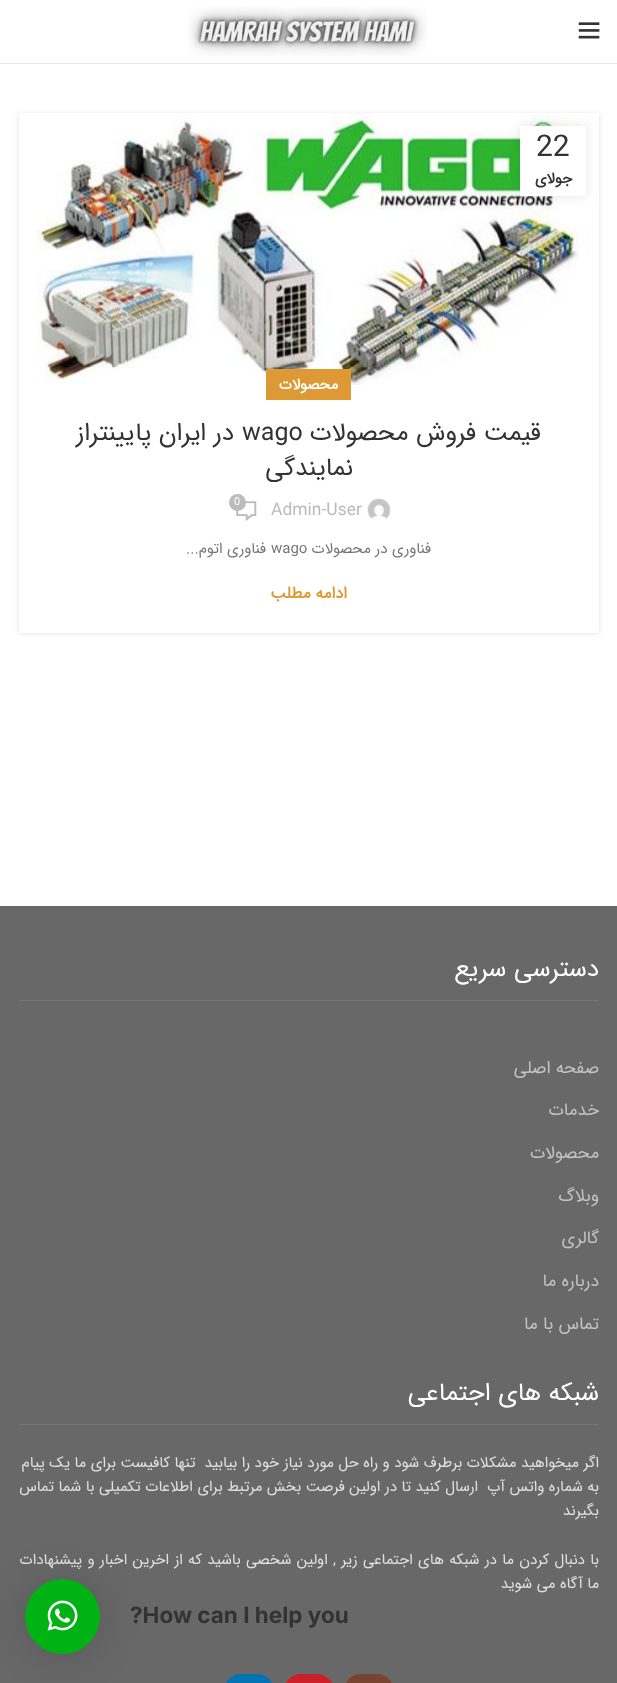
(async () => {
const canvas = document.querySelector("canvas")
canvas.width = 617
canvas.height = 1683
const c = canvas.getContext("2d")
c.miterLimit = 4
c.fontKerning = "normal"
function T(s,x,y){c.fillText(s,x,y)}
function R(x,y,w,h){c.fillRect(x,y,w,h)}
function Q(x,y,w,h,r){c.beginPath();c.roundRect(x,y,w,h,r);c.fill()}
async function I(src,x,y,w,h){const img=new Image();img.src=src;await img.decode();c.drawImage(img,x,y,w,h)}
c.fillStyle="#fff"
R(0,0,617,1683)
c.fillStyle="#e8e8e8"
R(0,63,617,1)
await I("1.png",578,22,22,17)
await I("2.png",188,7,239,49)
c.fillStyle="#0000001f"
c.filter="blur(2.5px)"
c.beginPath()
c.rect(19,114,580,519)
c.fill()
c.filter="none"
await I("3.png",19,113,580,272)
c.fillStyle="#0000001a"
c.filter="blur(5.5px)"
c.beginPath()
c.rect(520,126,66,70)
c.fill()
c.filter="none"
c.fillStyle="#fff"
R(520,126,66,70)
c.font="30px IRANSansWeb"
c.fillStyle="#333"
T("22",536,156)
c.direction="rtl"
c.font="bold 15px IRANSansWeb"
T("جولای",572,183)
c.fillStyle="#fff"
R(19,385,580,248)
c.fillStyle="#d93"
R(266,369,85,31)
c.fillStyle="#fff"
T("محصولات",338,389)
c.font="25px IRANSansWeb"
c.fillStyle="#333"
T("قیمت فروش محصولات",541,440)
c.direction="ltr"
T("wago",242,440)
c.direction="rtl"
T("در ایران پایینتراز",234,440)
T("نمایندگی",353,475)
await I("4.png",367,498,24,21)
c.direction="ltr"
c.font="17.5px IRANSansWeb"
c.fillStyle="#bbb"
T("Admin-User",271,515)
await I("5.png",236,501,21,20)
c.beginPath()
c.arc(237.5,502.5,8.5,0,7)
c.fill()
c.font="11px IRANSansWeb"
c.fillStyle="#fff"
T("0",234,505)
c.direction="rtl"
c.font="15px IRANSansWeb"
c.fillStyle="#777"
T("فناوری در محصولات",431,553)
c.direction="ltr"
T("wago",271,553)
c.direction="rtl"
T("فناوری اتوم...",266,553)
c.font="bold 16.25px IRANSansWeb"
c.fillStyle="#d93"
T("ادامه مطلب",347,598)
c.fillStyle="#686868"
R(0,906,617,777)
c.fillStyle="#777"
R(19,1000,580,1)
c.font="25px IRANSansWeb"
c.fillStyle="#fff"
T("دسترسی سریع",599,976)
c.font="17.5px IRANSansWeb"
c.fillStyle="#c3c3c3"
T("صفحه اصلی",599,1073)
T("خدمات",599,1115)
T("محصولات",599,1158)
T("وبلاگ",599,1201)
T("گالری",599,1243)
T("درباره ما",599,1286)
T("تماس با ما",599,1329)
c.fillStyle="#777"
R(19,1424,580,1)
c.font="25px IRANSansWeb"
c.fillStyle="#fff"
T("شبکه های اجتماعی",599,1400)
c.font="15px IRANSansWeb"
c.fillStyle="#e1e1e1"
T("اگر میخواهید مشکلات برطرف شود و راه حل مورد نیاز خود را بیابید  تنها کافیست برای ما یک پیام",599,1467)
T("به شماره واتس آپ  ارسال کنید تا در اولین فرصت بخش مرتبط برای اطلاعات تکمیلی با شما تماس",599,1491)
T("بگیرند",599,1515)
c.wordSpacing="0.8px"
T("با دنبال کردن ما در شبکه های اجتماعی زیر , اولین شخصی باشید که از اخرین اخبار و پیشنهادات",599,1564)
c.wordSpacing="0px"
T("ما آگاه می شوید",599,1588)
c.fillStyle="#774430"
Q(344,1674,50,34,25)
c.fillStyle="#cb2027"
Q(284,1674,50,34,25)
c.fillStyle="#0274b3"
Q(224,1674,50,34,25)
c.fillStyle="#00000029"
c.filter="blur(20px)"
c.beginPath()
c.roundRect(25,1581,75,75,37.5)
c.fill()
c.filter="none"
c.fillStyle="#00b214"
c.beginPath()
c.arc(62.5,1616.5,37.5,0,7)
c.fill()
c.direction="ltr"
c.font="bold 22.5px Inter"
c.fillStyle="#333"
T("?How can I help you",130,1623)
await I("6.png",47,1600,31,31)
})()
